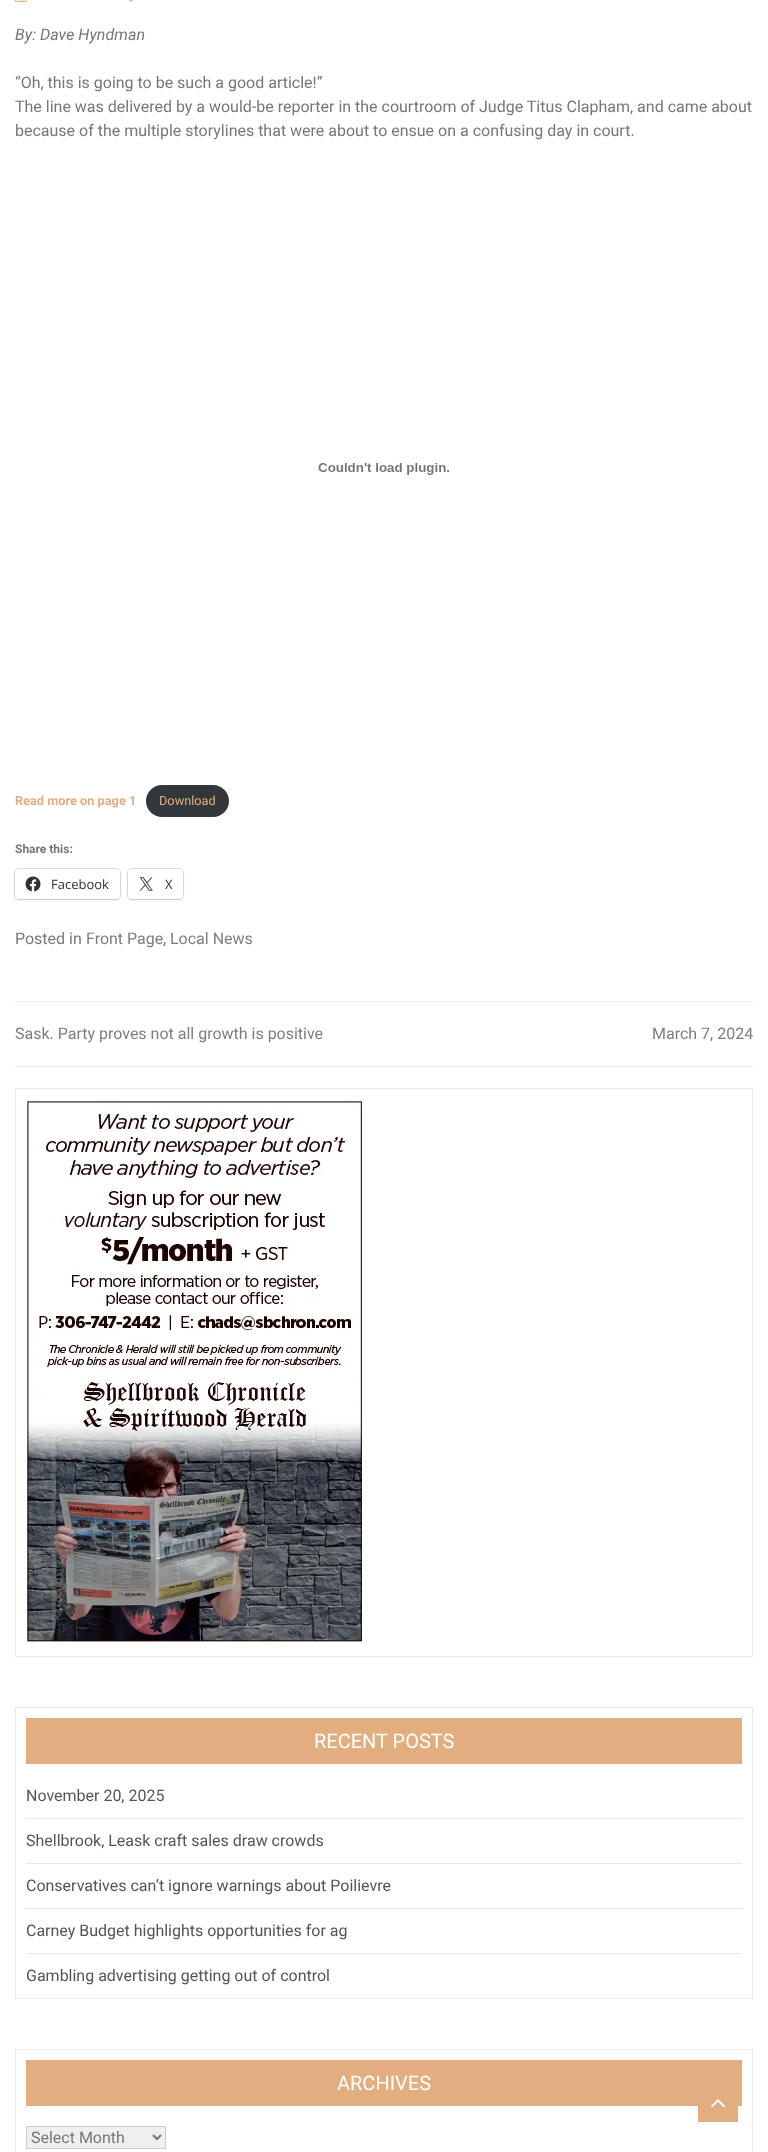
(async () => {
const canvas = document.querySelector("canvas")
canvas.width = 768
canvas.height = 2152
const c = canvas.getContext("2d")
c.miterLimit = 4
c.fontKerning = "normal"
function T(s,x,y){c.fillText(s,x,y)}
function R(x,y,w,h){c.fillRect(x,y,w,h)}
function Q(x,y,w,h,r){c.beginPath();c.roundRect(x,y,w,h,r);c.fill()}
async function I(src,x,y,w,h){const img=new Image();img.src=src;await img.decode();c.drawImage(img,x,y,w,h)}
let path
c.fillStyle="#fff"
R(0,0,768,2152)
await I("1.png",15,0,13,2)
await I("2.png",129,0,5,2)
c.font="italic 16px Roboto"
c.fillStyle="#777676"
T("By: Dave Hyndman",15,40)
c.font="16px Roboto"
T("“Oh, this is going to be such a good article!”",15,88)
T("The line was delivered by a would-be reporter in the courtroom of Judge Titus Clapham, and came about",15,112)
T("because of the multiple storylines that were about to ensue on a confusing day in court.",15,136)
await I("3.png",318,463,131,12)
c.font="bold 12.75px Roboto"
c.fillStyle="#e2ae7f"
T("Read more on page 1",15,805)
c.fillStyle="#32373c"
Q(146,785,83,32,16)
c.font="12.75px Roboto"
c.fillStyle="#e2ae7f"
T("Download",159,805)
c.font="bold 12px Roboto"
c.fillStyle="#777676"
T("Share this:",15,853)
c.beginPath()
c.roundRect(14.5,868.5,106,31,4.5)
c.strokeStyle="#e0e0e0"
c.stroke()
c.fillStyle="#0000001f"
c.filter="blur(1px)"
c.beginPath()
c.roundRect(15,870,105,30,4)
c.fill()
c.filter="none"
c.fillStyle="#fff"
Q(15,869,105,30,4)
await I("4.png",25,876,16,16)
c.font="13px Open Sans"
c.fillStyle="#2c3338"
T("Facebook",51,889)
c.beginPath()
c.roundRect(127.5,868.5,56,31,4.5)
c.stroke()
c.fillStyle="#0000001f"
c.filter="blur(1px)"
c.beginPath()
c.roundRect(128,870,55,30,4)
c.fill()
c.filter="none"
c.fillStyle="#fff"
Q(128,869,55,30,4)
await I("5.png",139,877,14,14)
c.fillStyle="#2c3338"
T("X",165,889)
c.font="16px Roboto"
c.fillStyle="#777676"
T("Posted in",15,944)
c.fillStyle="#7d7d7d"
T("Front Page",86,944)
c.fillStyle="#777676"
T(",",163,944)
c.fillStyle="#7d7d7d"
T("Local News",170,944)
c.fillStyle="#eaeaea"
R(15,1001,738,1)
R(15,1066,738,1)
c.fillStyle="#7d7d7d"
T("Sask. Party proves not all growth is positive",15,1039)
T("March 7, 2024",652,1039)
c.strokeStyle="#eaeaea"
c.strokeRect(15.5,1088.5,737,568)
await I("6.png",27,1100,336,542)
c.strokeRect(15.5,1707.5,737,291)
c.fillStyle="#e2ae7f"
R(26,1718,716,46)
c.font="20px Roboto"
c.fillStyle="#fff"
T("RECENT POSTS",314,1748)
c.fillStyle="#e8e8e8"
R(26,1818,716,1)
c.font="16px Roboto"
c.fillStyle="#545454"
T("November 20, 2025",26,1801)
c.fillStyle="#e8e8e8"
R(26,1863,716,1)
c.fillStyle="#545454"
T("Shellbrook, Leask craft sales draw crowds",26,1846)
c.fillStyle="#e8e8e8"
R(26,1908,716,1)
c.fillStyle="#545454"
T("Conservatives can’t ignore warnings about Poilievre",26,1891)
c.fillStyle="#e8e8e8"
R(26,1953,716,1)
c.fillStyle="#545454"
T("Carney Budget highlights opportunities for ag",26,1936)
T("Gambling advertising getting out of control",26,1981)
c.strokeRect(15.5,2049.5,737,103)
c.fillStyle="#e2ae7f"
R(26,2060,716,46)
c.font="20px Roboto"
c.fillStyle="#fff"
T("ARCHIVES",337,2090)
c.fillStyle="#efefef"
c.beginPath()
c.rect(26.5,2126.5,139,22)
c.fill()
c.strokeStyle="#ccc"
c.stroke()
path = new Path2D("M153 2135l4 4l4-4")
c.strokeStyle="#777676"
c.lineWidth=2
c.stroke(path)
c.font="16px Roboto"
c.fillStyle="#777676"
T("Select Month",31,2143)
c.fillStyle="#e2ae7f"
R(698,2106,40,16)
await I("7.png",711,2099,14,9)
})()
